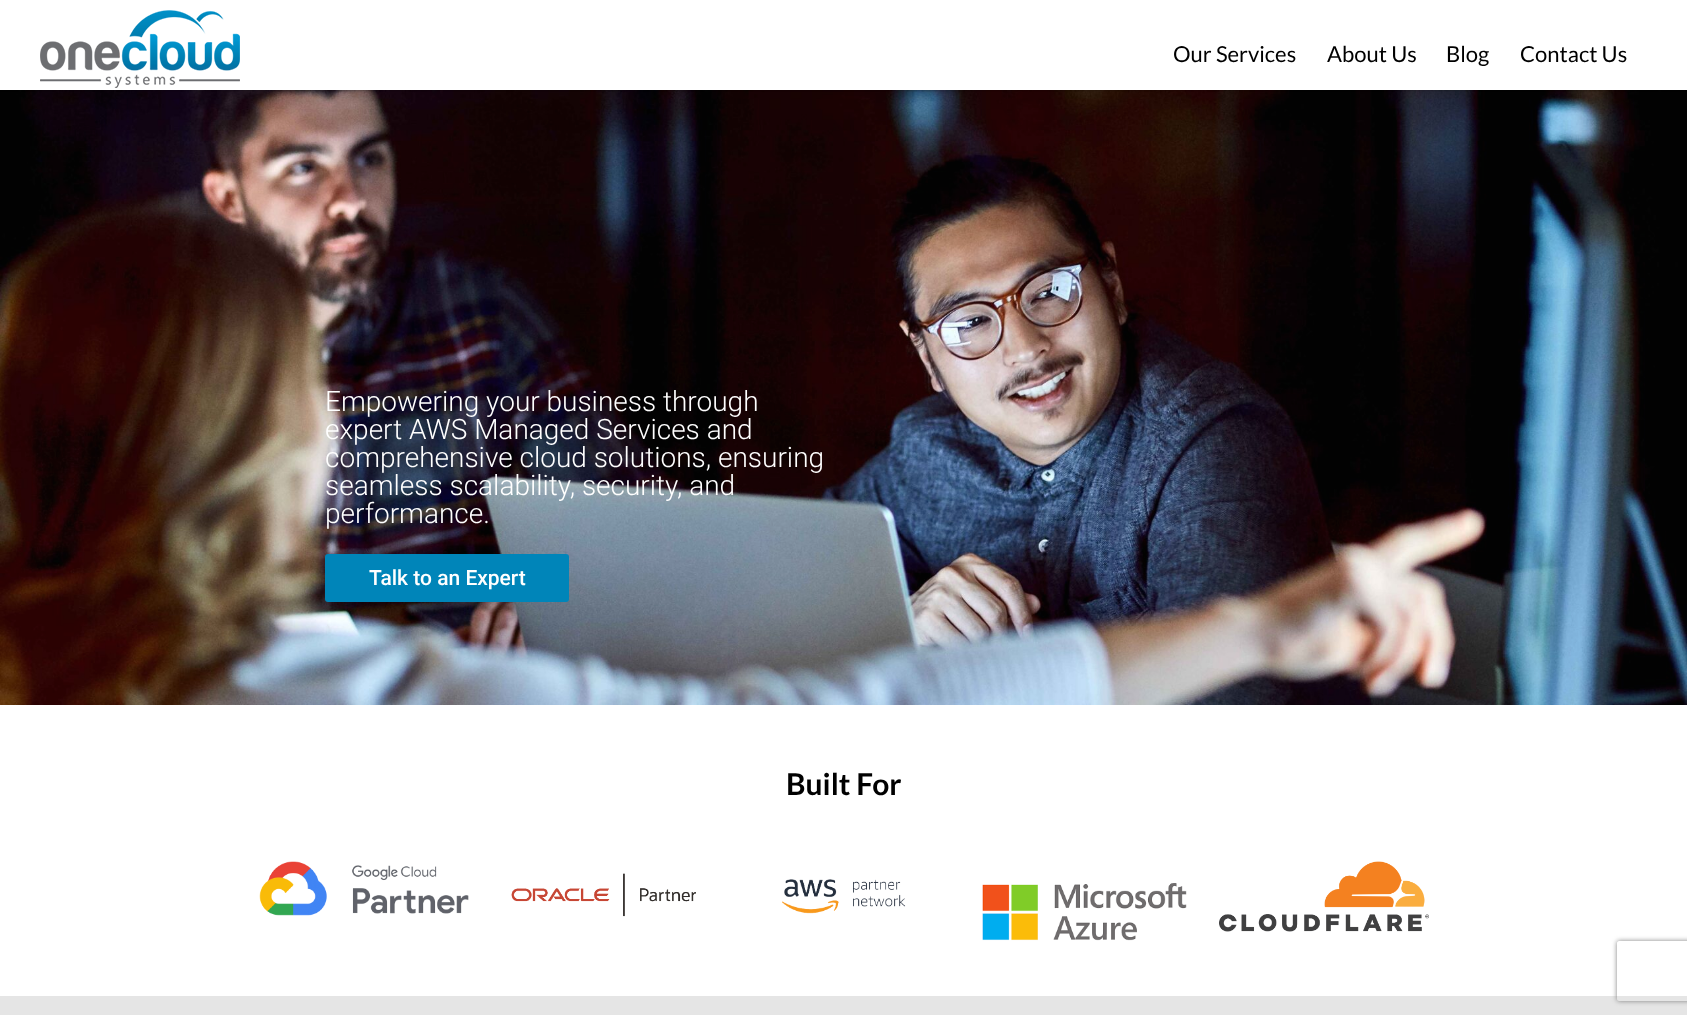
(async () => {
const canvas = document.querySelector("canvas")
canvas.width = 1687
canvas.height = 1015
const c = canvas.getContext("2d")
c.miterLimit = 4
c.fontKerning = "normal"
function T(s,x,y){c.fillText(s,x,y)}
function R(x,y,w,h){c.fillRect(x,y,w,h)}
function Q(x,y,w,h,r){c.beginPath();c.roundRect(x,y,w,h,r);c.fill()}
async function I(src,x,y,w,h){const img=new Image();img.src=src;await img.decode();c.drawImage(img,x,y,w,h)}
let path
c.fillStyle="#fff"
R(0,0,1687,1015)
await I("2.png",0,90,1687,615)
c.save()
c.beginPath()
c.rect(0,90,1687,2)
c.clip()
c.fillStyle="#00000029"
c.filter="blur(1px)"
c.beginPath()
c.rect(-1,-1,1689,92)
c.fill()
c.filter="none"
c.restore()
await I("1.png",40,10,200,78)
c.font="22px Lato"
c.fillStyle="#000"
T("Our Services",1173,62)
T("About Us",1327,62)
T("Blog",1446,62)
T("Contact Us",1520,62)
c.font="300 28px Roboto"
c.fillStyle="#fff"
T("Empowering your business through",325,411)
T("expert AWS Managed Services and",325,439)
T("comprehensive cloud solutions, ensuring",325,467)
T("seamless scalability, security, and",325,495)
T("performance.",325,523)
c.fillStyle="#0085b9"
Q(325,554,244,48,3)
c.font="500 21px Roboto"
c.fillStyle="#fff"
T("Talk to an Expert",369,585)
c.font="bold 30px Lato"
c.fillStyle="#000"
T("Built For",786,795)
await I("3.png",259,861,210,55)
await I("4.png",511,873,185,44)
await I("5.png",782,879,124,35)
await I("6.png",982,883,205,58)
await I("7.png",1219,861,210,71)
c.fillStyle="#e5e5e5"
R(0,996,1687,19)
c.save()
path = new Path2D("M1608 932h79v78h-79zm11 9h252c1 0 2 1 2 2v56c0 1-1 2-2 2h-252c-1 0-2-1-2-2v-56c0-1 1-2 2-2z")
c.clip(path,"evenodd")
c.fillStyle="#808080"
c.filter="blur(2.5px)"
c.beginPath()
c.roundRect(1617,941,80,60,2)
c.fill()
c.filter="none"
c.restore()
})()
